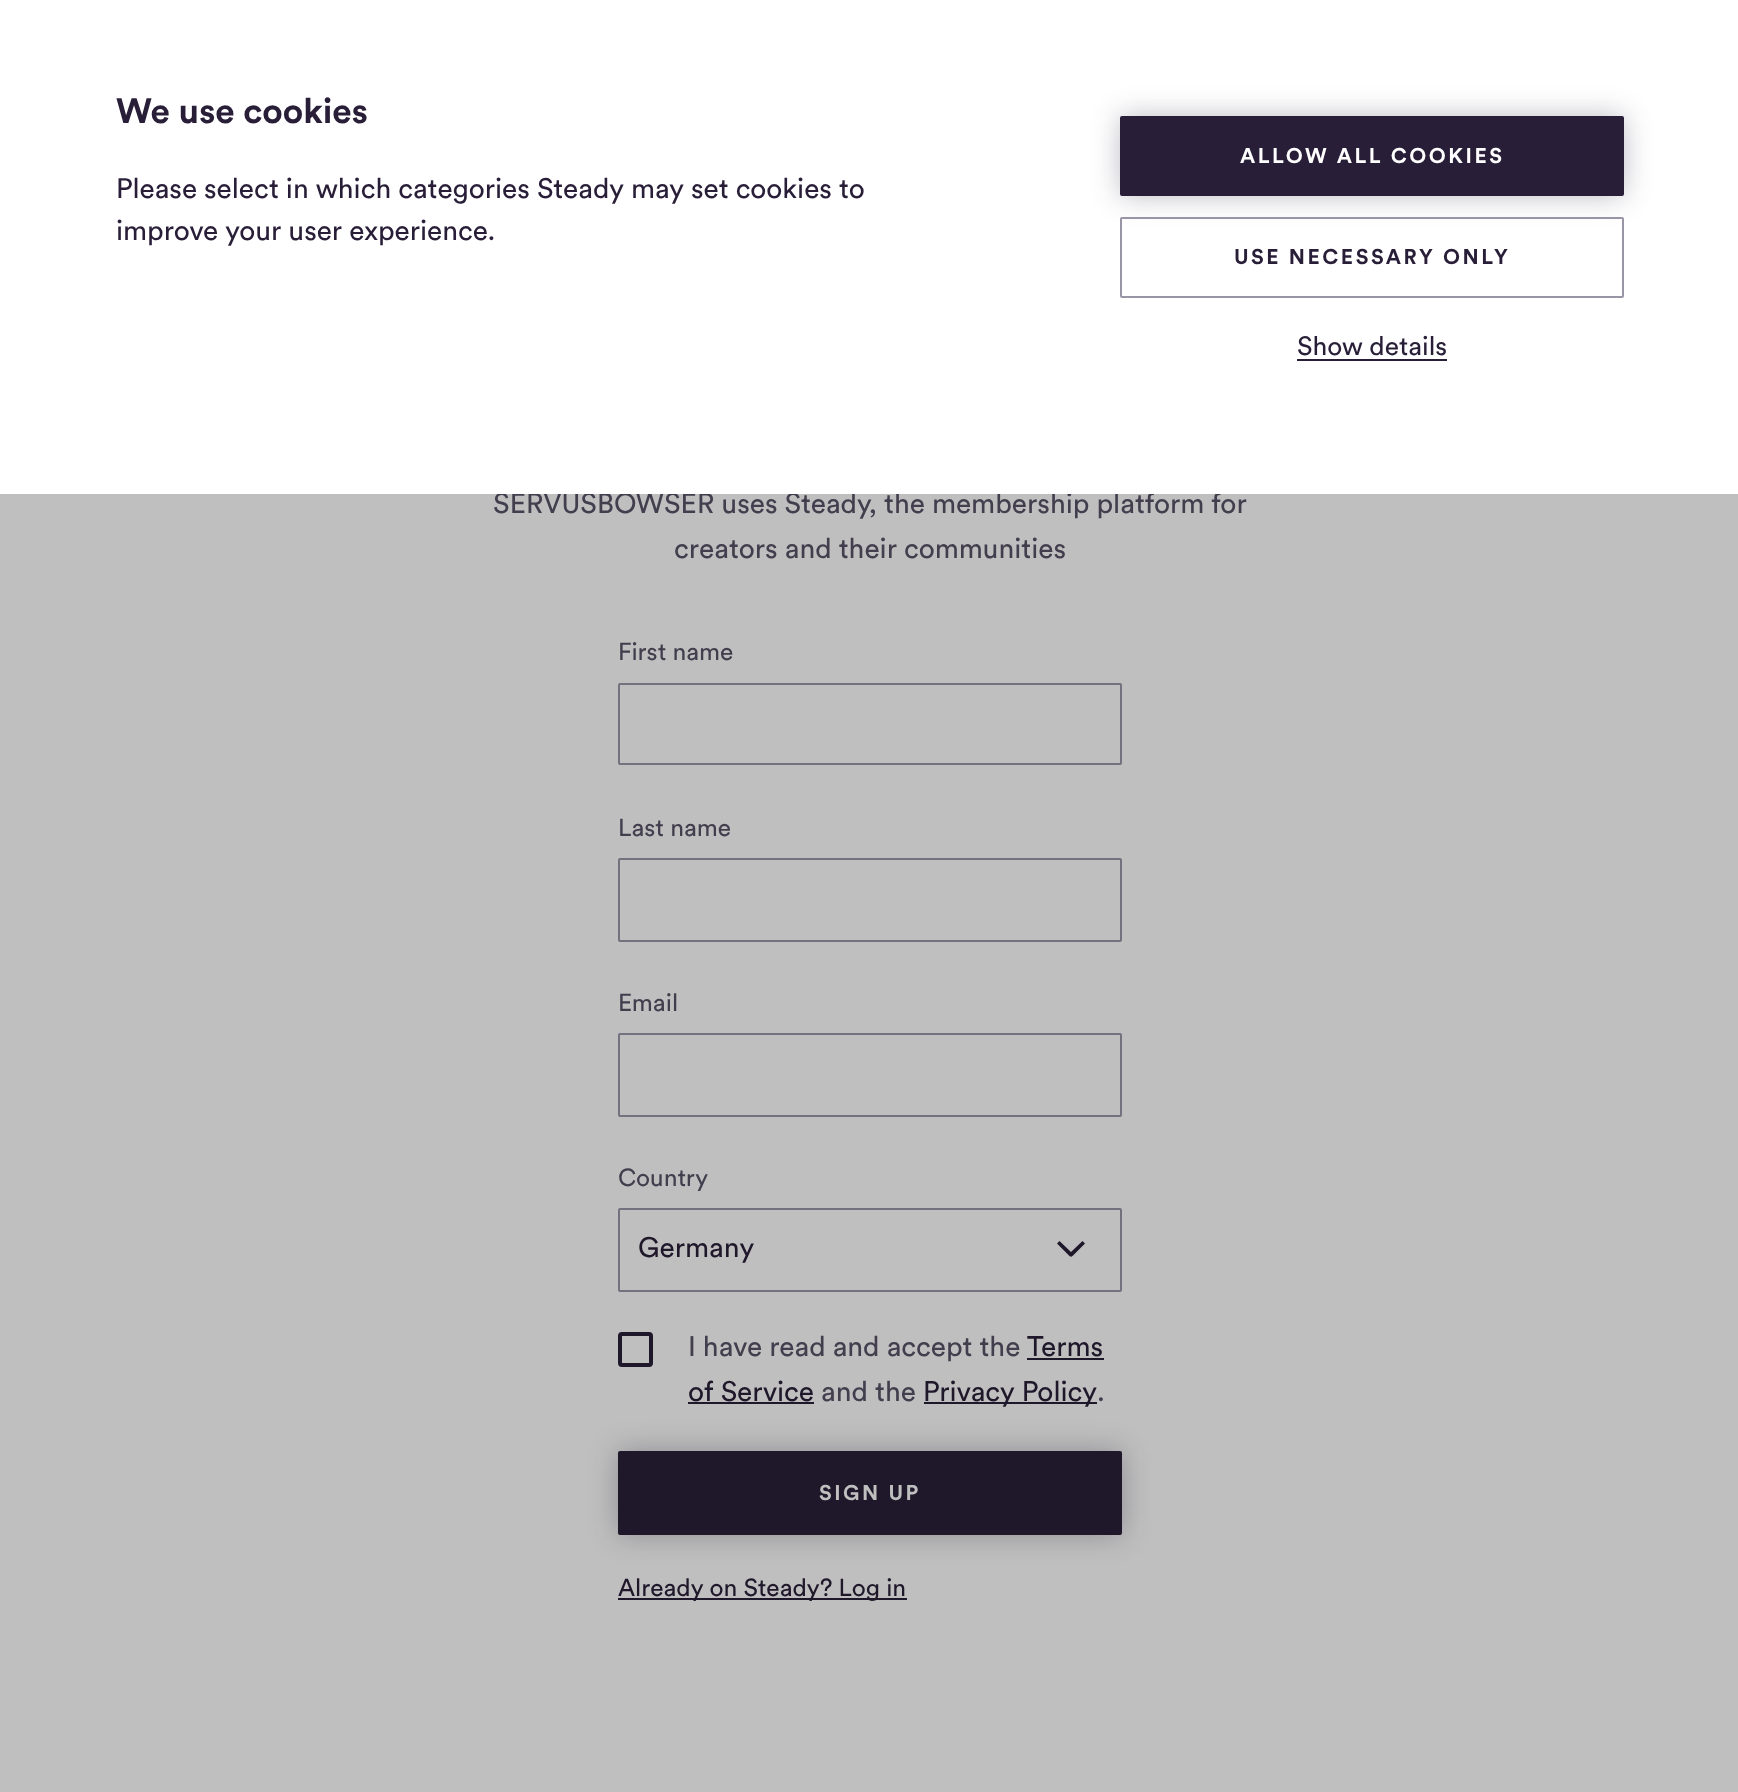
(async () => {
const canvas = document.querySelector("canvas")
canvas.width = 1738
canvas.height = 1792
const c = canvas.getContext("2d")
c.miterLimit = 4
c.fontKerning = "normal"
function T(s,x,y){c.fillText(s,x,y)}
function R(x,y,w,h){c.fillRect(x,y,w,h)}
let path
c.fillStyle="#bfbfbf"
R(0,0,1738,1792)
c.font="28.05px Circular"
c.fillStyle="#423e4d"
T("SERVUSBOWSER uses Steady, the membership platform for",493,513)
c.fillStyle="#fff"
R(0,0,1738,494)
c.font="bold 35px Circular"
c.fillStyle="#291e38"
T("We use cookies",116,123)
c.font="28px Circular"
T("Please select in which categories Steady may set cookies to",116,198)
T("improve your user experience.",116,240)
c.fillStyle="#291e384d"
c.filter="blur(14px)"
c.beginPath()
c.roundRect(1120,116,504,80,2)
c.fill()
c.filter="none"
c.fillStyle="#291e38"
c.beginPath()
c.roundRect(1121,117,502,78,1)
c.fill()
c.strokeStyle="#291e38"
c.lineWidth=2
c.stroke()
c.letterSpacing="2.5px"
c.font="bold 21.1px Circular"
c.fillStyle="#fff"
T("ALLOW ALL COOKIES",1240,163)
c.beginPath()
c.roundRect(1121,218,502,79,1)
c.strokeStyle="#9a95a6"
c.stroke()
c.fillStyle="#291e38"
T("USE NECESSARY ONLY",1234,264)
c.letterSpacing="0px"
c.font="26.25px Circular"
T("Show details",1297,355)
R(1297,359,150,2)
c.font="28.05px Circular"
c.fillStyle="#423e4d"
T("creators and their communities",674,558)
c.font="24.5px Circular"
T("First name",618,660)
c.beginPath()
c.roundRect(619,684,502,80,1)
c.strokeStyle="#74707d"
c.stroke()
T("Last name",618,836)
c.beginPath()
c.roundRect(619,859,502,82,1)
c.stroke()
T("Email",618,1011)
c.beginPath()
c.roundRect(619,1034,502,82,1)
c.stroke()
T("Country",618,1186)
c.fillStyle="#1f172a"
path = new Path2D("M1082.5 1241l-11.5 11l-11.5-11l-2.5 2.5l10.5 10.5c3.5 3.5 3.5 3.5 7 0l10.5-10.5z")
c.fill(path)
c.beginPath()
c.roundRect(619,1209,502,82,1)
c.stroke()
c.font="28.05px Circular"
T("Germany",638,1257)
c.beginPath()
c.roundRect(620,1334,31,31,2)
c.strokeStyle="#1f172a"
c.lineWidth=4
c.stroke()
c.fillStyle="#423e4d"
T("I have read and accept the",688,1356)
c.fillStyle="#1f172a"
T("Terms",1027,1356)
R(1027,1358,77,2)
T("of Service",688,1401)
R(688,1402,126,2)
c.fillStyle="#423e4d"
T("and the",821,1401)
c.fillStyle="#1f172a"
R(924,1402,173,2)
T("Privacy Policy",923,1401)
c.fillStyle="#423e4d"
T(".",1097,1401)
c.fillStyle="#1f172a4d"
c.filter="blur(14px)"
c.beginPath()
c.roundRect(618,1451,504,84,2)
c.fill()
c.filter="none"
c.fillStyle="#1f172a"
c.beginPath()
c.roundRect(619,1452,502,82,1)
c.fill()
c.lineWidth=2
c.stroke()
c.letterSpacing="2.5px"
c.font="bold 21.1px Circular"
c.fillStyle="#bfbfbf"
T("SIGN UP",819,1500)
c.fillStyle="#1f172a"
R(618,1598,289,2)
c.letterSpacing="0px"
c.font="24.5px Circular"
T("Already on Steady? Log in",618,1596)
})()
